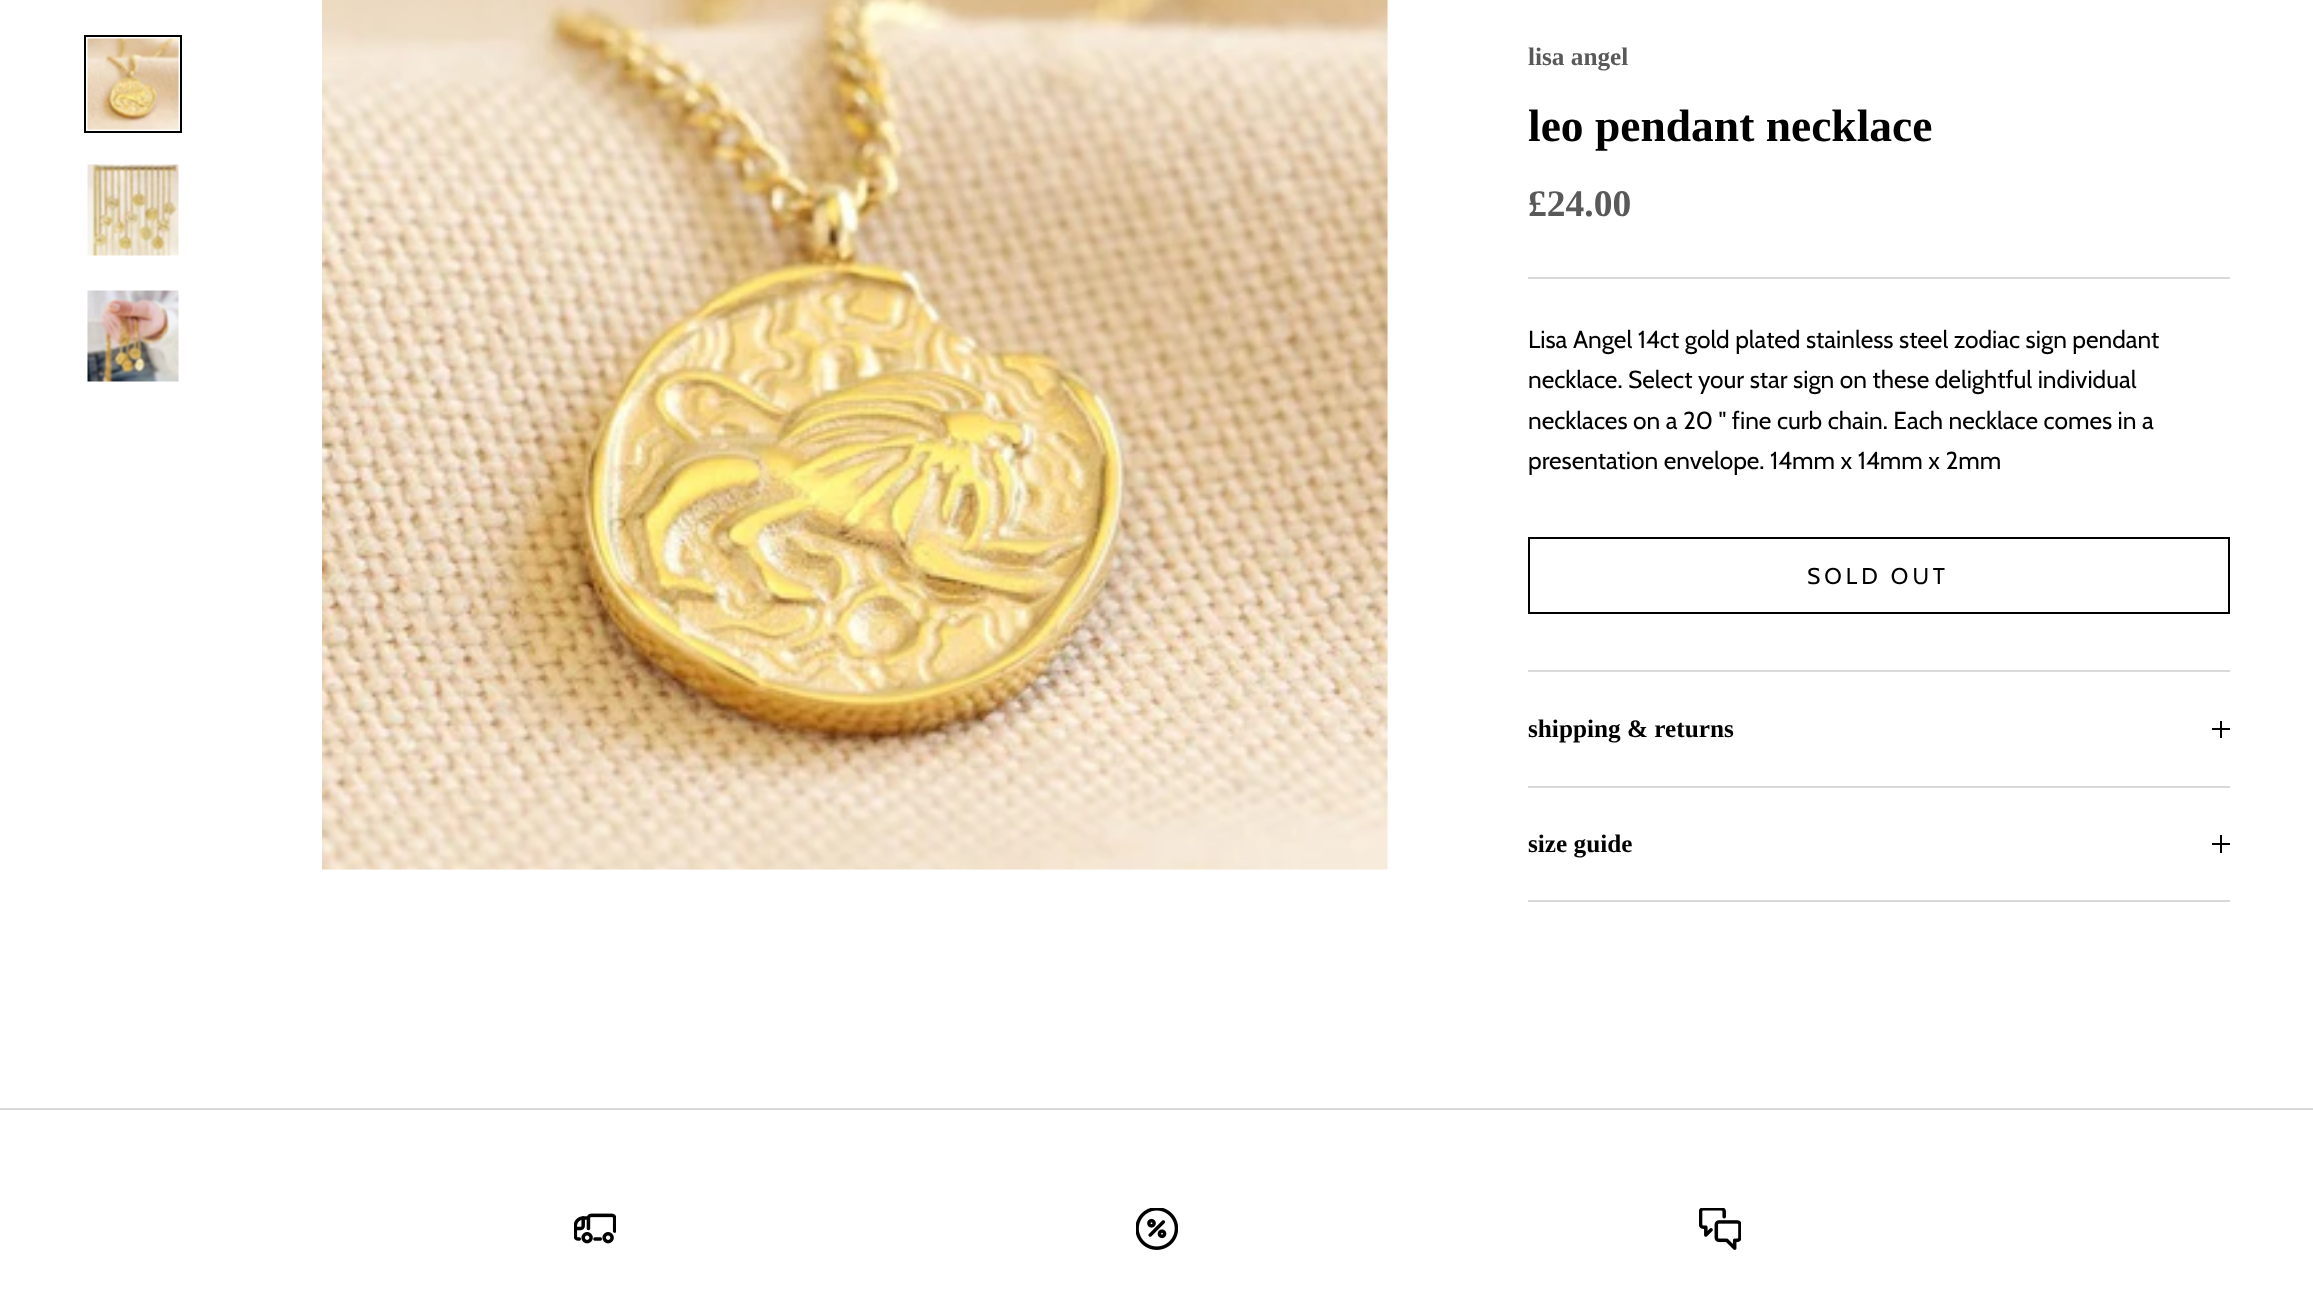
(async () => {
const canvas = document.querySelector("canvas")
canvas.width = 2313
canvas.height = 1311
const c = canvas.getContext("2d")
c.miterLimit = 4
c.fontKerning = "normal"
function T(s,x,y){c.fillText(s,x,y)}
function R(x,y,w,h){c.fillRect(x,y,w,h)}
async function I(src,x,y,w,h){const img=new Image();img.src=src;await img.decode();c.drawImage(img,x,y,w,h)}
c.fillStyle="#fff"
R(0,0,2313,1311)
c.strokeStyle="#000"
c.lineWidth=2
c.strokeRect(85,36,96,96)
await I("1.png",87,38,92,92)
await I("2.png",87,164,92,92)
await I("3.png",87,290,92,92)
await I("4.png",322,0,1066,870)
c.font="bold 25.25px Liberation Serif"
c.fillStyle="#595959"
T("lisa angel",1528,65)
c.font="bold 45.5px Liberation Serif"
c.fillStyle="#000"
T("leo pendant necklace",1528,141)
c.font="bold 37.5px Liberation Serif"
c.fillStyle="#595959"
T("£24.00",1528,216)
c.fillStyle="#d9d9d9"
R(1528,277,702,2)
c.font="24.5px Cabin"
c.fillStyle="#000"
T("Lisa Angel 14ct gold plated stainless steel zodiac sign pendant",1528,348)
T("necklace. Select your star sign on these delightful individual",1528,388)
T("necklaces on a 20 \" fine curb chain. Each necklace comes in a",1528,429)
T("presentation envelope. 14mm x 14mm x 2mm",1528,469)
c.strokeRect(1529,538,700,75)
c.letterSpacing="4px"
c.font="22.75px Cabin"
T("SOLD OUT",1807,584)
c.fillStyle="#d9d9d9"
R(1528,670,702,2)
R(1528,786,702,2)
c.letterSpacing="0px"
c.font="bold 25.25px Liberation Serif"
c.fillStyle="#000"
T("shipping & returns",1528,737)
R(2220,721,2,17)
R(2212,728,18,2)
c.fillStyle="#d9d9d9"
R(1528,900,702,2)
c.fillStyle="#000"
T("size guide",1528,852)
R(2220,835,2,18)
R(2212,843,18,2)
c.fillStyle="#d9d9d9"
R(0,1108,2313,2)
await I("5.png",574,1213,42,31)
await I("6.png",1136,1208,42,42)
await I("7.png",1699,1208,42,42)
})()
